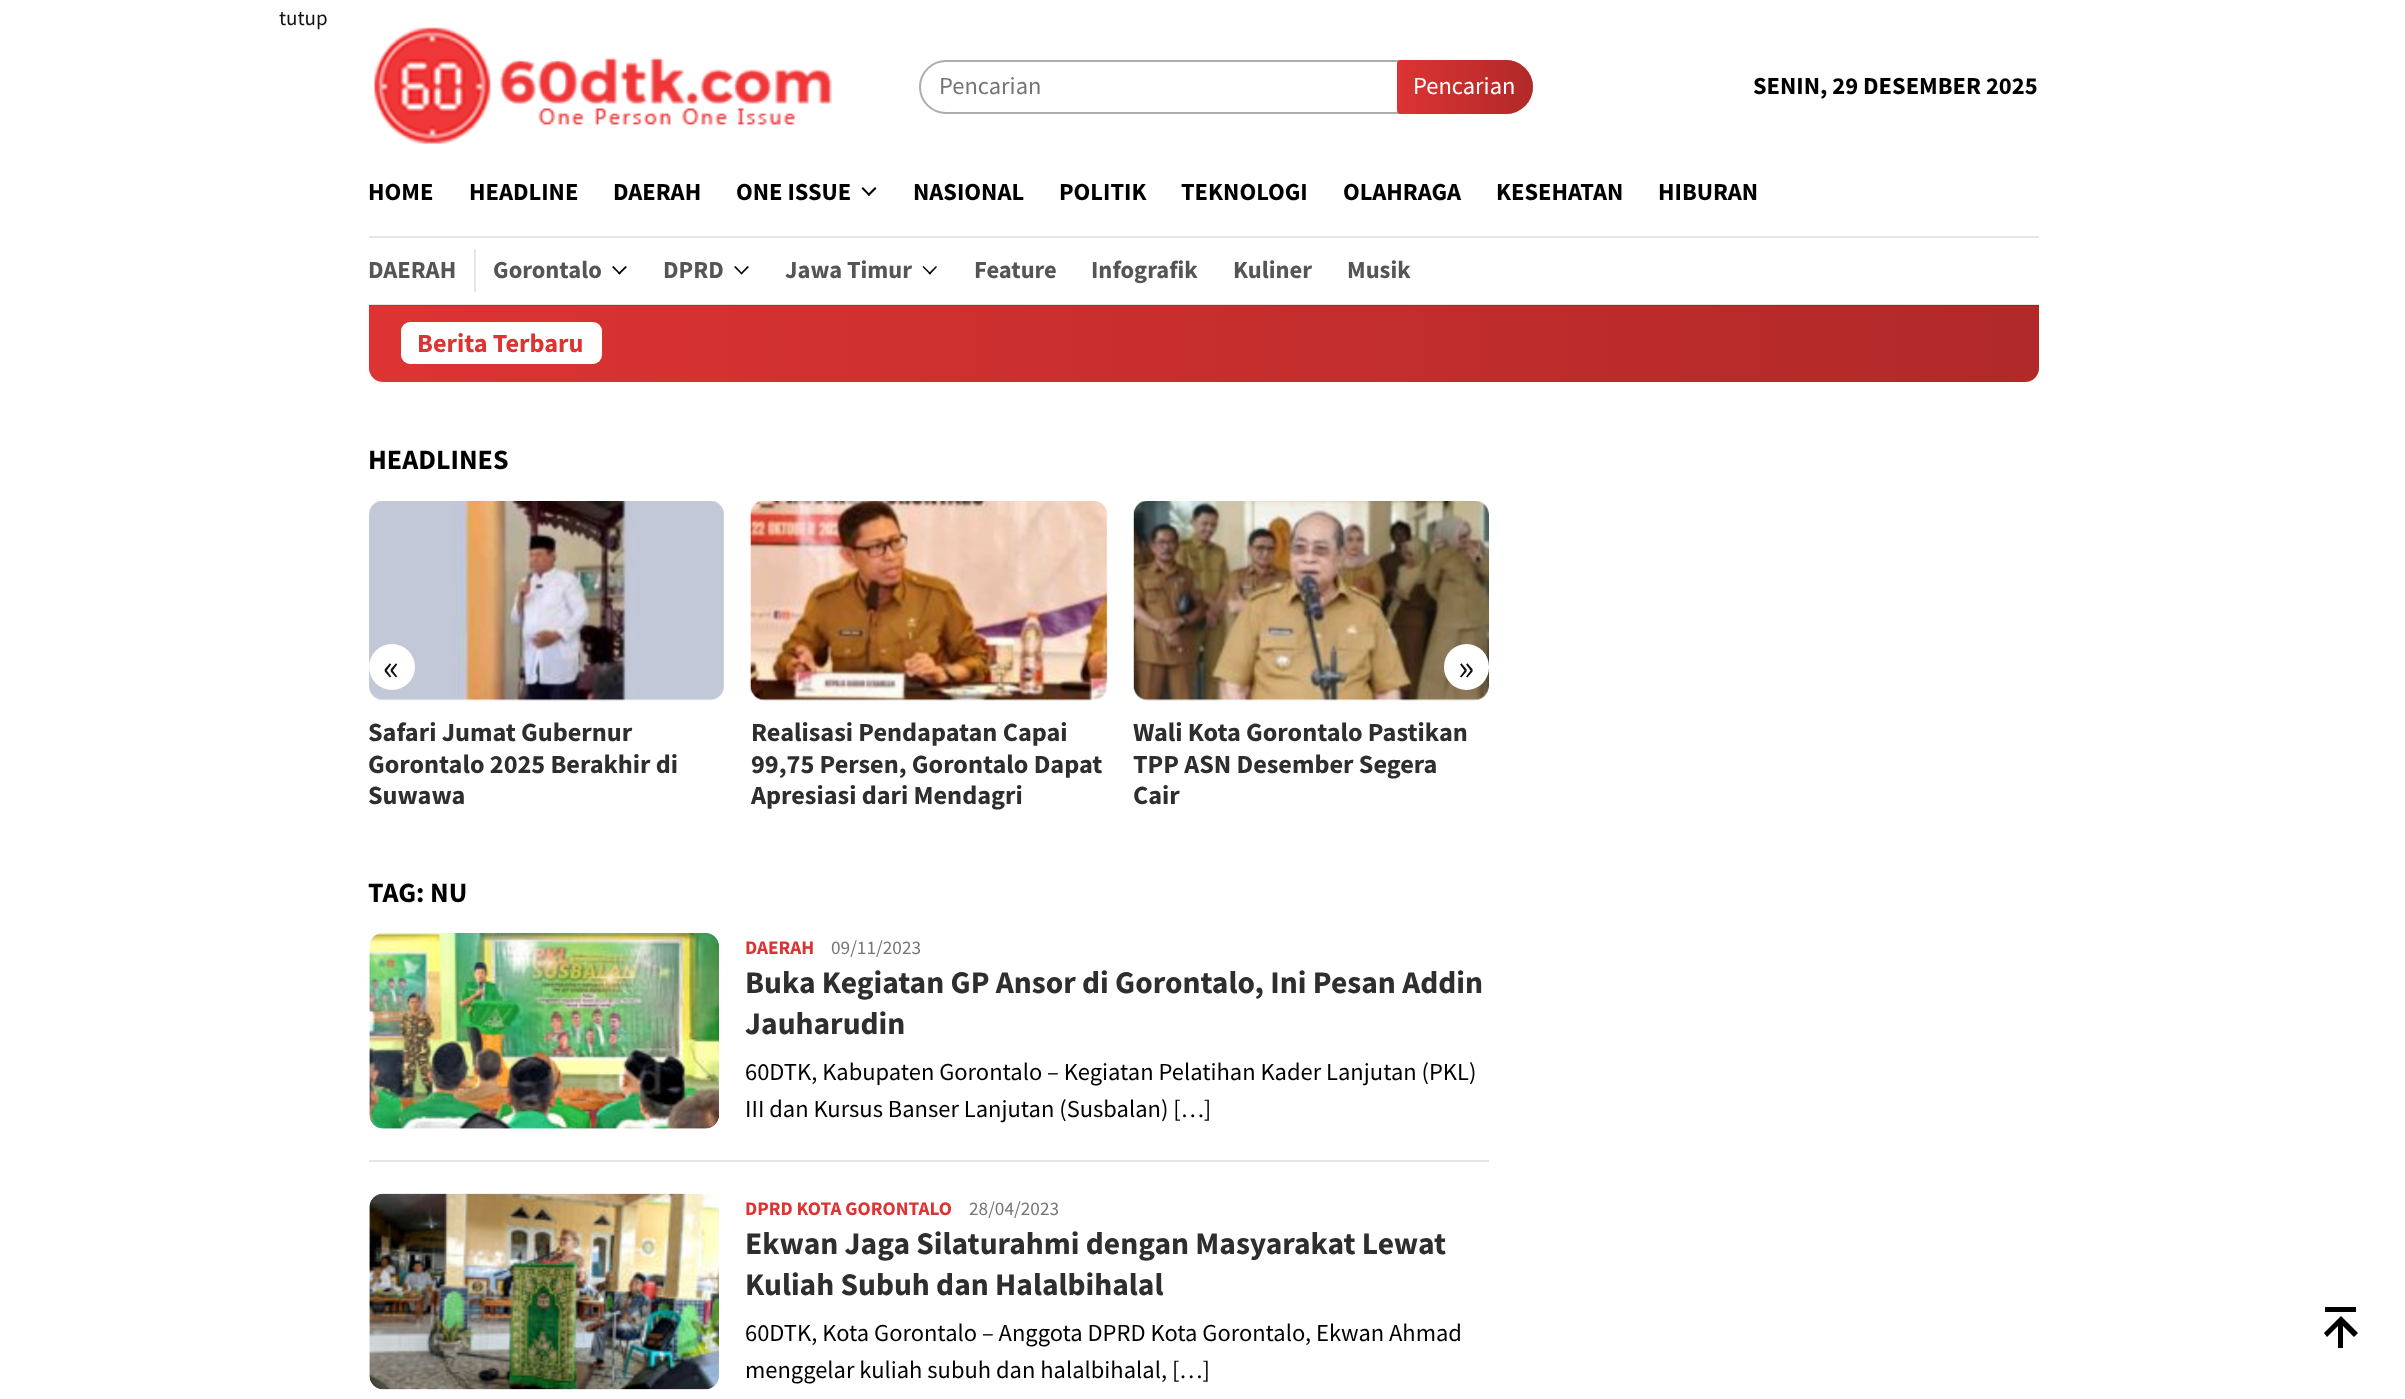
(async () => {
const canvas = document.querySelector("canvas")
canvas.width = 2405
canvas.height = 1399
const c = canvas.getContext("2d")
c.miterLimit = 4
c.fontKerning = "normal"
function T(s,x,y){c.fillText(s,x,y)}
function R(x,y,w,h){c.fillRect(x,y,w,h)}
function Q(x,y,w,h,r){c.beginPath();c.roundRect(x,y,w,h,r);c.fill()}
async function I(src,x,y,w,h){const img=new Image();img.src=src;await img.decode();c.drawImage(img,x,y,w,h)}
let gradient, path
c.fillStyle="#fff"
R(0,0,2405,1399)
c.font="21px Source Sans Pro"
c.fillStyle="#111"
T("tutup",279,25)
await I("1.png",374,27,458,117)
c.beginPath()
c.roundRect(920,61,612,52,26)
c.strokeStyle="#adadad"
c.lineWidth=2
c.stroke()
c.font="24.5px Source Sans Pro"
c.fillStyle="#757575"
T("Pencarian",939,94)
c.fillStyle="#d33"
c.beginPath()
c.roundRect(1397,60,136,54,[4,27,27,4])
c.fill()
gradient = c.createLinearGradient(1397,87,1533,87)
gradient.addColorStop(0,"#00000000")
gradient.addColorStop(1,"#00000033")
c.fillStyle = gradient
c.beginPath()
c.roundRect(1397,60,136,54,[4,27,27,4])
c.fill()
c.fillStyle="#fff"
T("Pencarian",1413,94)
c.font="bold 24.5px Source Sans Pro"
c.fillStyle="#000"
T("SENIN, 29 DESEMBER 2025",1753,94)
c.fillStyle="#e6e6e6"
path = new Path2D("M369 149v89h1670v-89v87h-1670z")
c.fill(path)
c.fillStyle="#000"
T("HOME",368,200)
T("HEADLINE",469,200)
T("DAERAH",613,200)
T("ONE ISSUE",736,200)
path = new Path2D("M875 187l1.5 1.5l-7.5 7.5l-1.5-1.5z")
c.fill(path)
path = new Path2D("M863 187l7 7.5l-1 1.5l-7.5-7.5z")
c.fill(path)
T("NASIONAL",913,200)
T("POLITIK",1059,200)
T("TEKNOLOGI",1181,200)
T("OLAHRAGA",1343,200)
T("KESEHATAN",1496,200)
T("HIBURAN",1658,200)
c.fillStyle="#d33"
c.beginPath()
c.roundRect(369,305,1670,77,[0,0,14,14])
c.fill()
gradient = c.createLinearGradient(369,343,2039,343)
gradient.addColorStop(0,"#00000000")
gradient.addColorStop(1,"#00000033")
c.fillStyle = gradient
c.beginPath()
c.roundRect(369,305,1670,77,[0,0,14,14])
c.fill()
c.fillStyle="#0000001a"
path = new Path2D("M369 238v68h1670v-68v66h-1670z")
c.fill(path)
c.fillStyle="#e6e6e6"
R(474,249,2,43)
c.fillStyle="#555"
T("DAERAH",368,278)
T("Gorontalo",493,278)
c.fillStyle="#000"
path = new Path2D("M625.5 266l1.5 1l-7.5 7.5l-1.5-1z")
c.fill(path)
path = new Path2D("M613.5 266l7 7.5l-1 1l-7.5-7.5z")
c.fill(path)
c.fillStyle="#555"
T("DPRD",663,278)
c.fillStyle="#000"
path = new Path2D("M747.5 266l1.5 1l-7.5 7.5l-1-1z")
c.fill(path)
path = new Path2D("M735.5 266l7 7.5l-1 1l-7.5-7.5z")
c.fill(path)
c.fillStyle="#555"
T("Jawa Timur",785,278)
c.fillStyle="#000"
path = new Path2D("M936 266l1 1l-7 7.5l-1.5-1z")
c.fill(path)
path = new Path2D("M923.5 266l7.5 7.5l-1 1l-7.5-7.5z")
c.fill(path)
c.fillStyle="#555"
T("Feature",974,278)
T("Infografik",1091,278)
T("Kuliner",1233,278)
T("Musik",1347,278)
c.fillStyle="#fff"
Q(401,322,201,42,9)
c.font="bold 26.25px Source Sans Pro"
c.fillStyle="#d33"
T("Berita Terbaru",417,352)
c.font="bold 28px Source Sans Pro"
c.fillStyle="#000"
T("HEADLINES",368,469)
await I("2.png",369,501,355,200)
c.fillStyle="#fff"
c.beginPath()
c.arc(392,667,23,0,7)
c.fill()
c.font="38px Source Sans Pro"
c.fillStyle="#111"
T("«",383,680)
await I("4.png",1133,501,356,200)
c.fillStyle="#fff"
Q(1444,644,45,46,22.5)
c.fillStyle="#111"
T("»",1458,680)
c.font="bold 26.25px Source Sans Pro"
c.fillStyle="#2e2e2e"
T("Safari Jumat Gubernur",368,741)
T("Gorontalo 2025 Berakhir di",368,773)
T("Suwawa",368,804)
await I("3.png",749,501,359,200)
T("Realisasi Pendapatan Capai",751,741)
T("99,75 Persen, Gorontalo Dapat",751,773)
T("Apresiasi dari Mendagri",751,804)
T("Wali Kota Gorontalo Pastikan",1133,741)
T("TPP ASN Desember Segera",1133,773)
T("Cair",1133,804)
c.font="bold 28px Source Sans Pro"
c.fillStyle="#000"
T("TAG: NU",368,902)
c.fillStyle="#e5e5e5"
R(369,1160,1120,2)
await I("5.png",369,933,350,196)
c.font="bold 19.25px Source Sans Pro"
c.fillStyle="#d33"
T("DAERAH",745,954)
c.font="19.25px Source Sans Pro"
c.fillStyle="#757575"
T("09/11/2023",831,954)
c.font="bold 31.5px Source Sans Pro"
c.fillStyle="#2e2e2e"
T("Buka Kegiatan GP Ansor di Gorontalo, Ini Pesan Addin",745,993)
T("Jauharudin",745,1034)
c.font="24.5px Source Sans Pro"
c.fillStyle="#000"
T("60DTK, Kabupaten Gorontalo – Kegiatan Pelatihan Kader Lanjutan (PKL)",745,1080)
T("III dan Kursus Banser Lanjutan (Susbalan) […]",745,1117)
await I("6.png",369,1193,350,197)
c.font="bold 19.25px Source Sans Pro"
c.fillStyle="#d33"
T("DPRD KOTA GORONTALO",745,1215)
c.font="19.25px Source Sans Pro"
c.fillStyle="#757575"
T("28/04/2023",969,1215)
c.font="bold 31.5px Source Sans Pro"
c.fillStyle="#2e2e2e"
T("Ekwan Jaga Silaturahmi dengan Masyarakat Lewat",745,1254)
T("Kuliah Subuh dan Halalbihalal",745,1295)
c.font="24.5px Source Sans Pro"
c.fillStyle="#000"
T("60DTK, Kota Gorontalo – Anggota DPRD Kota Gorontalo, Ekwan Ahmad",745,1341)
T("menggelar kuliah subuh dan halalbihalal, […]",745,1378)
path = new Path2D("M2325 1307h31v5h-31zm2 30l11-11v22h5v-22l11 11l4-4l-17-17l-17 17z")
c.fill(path)
})()
